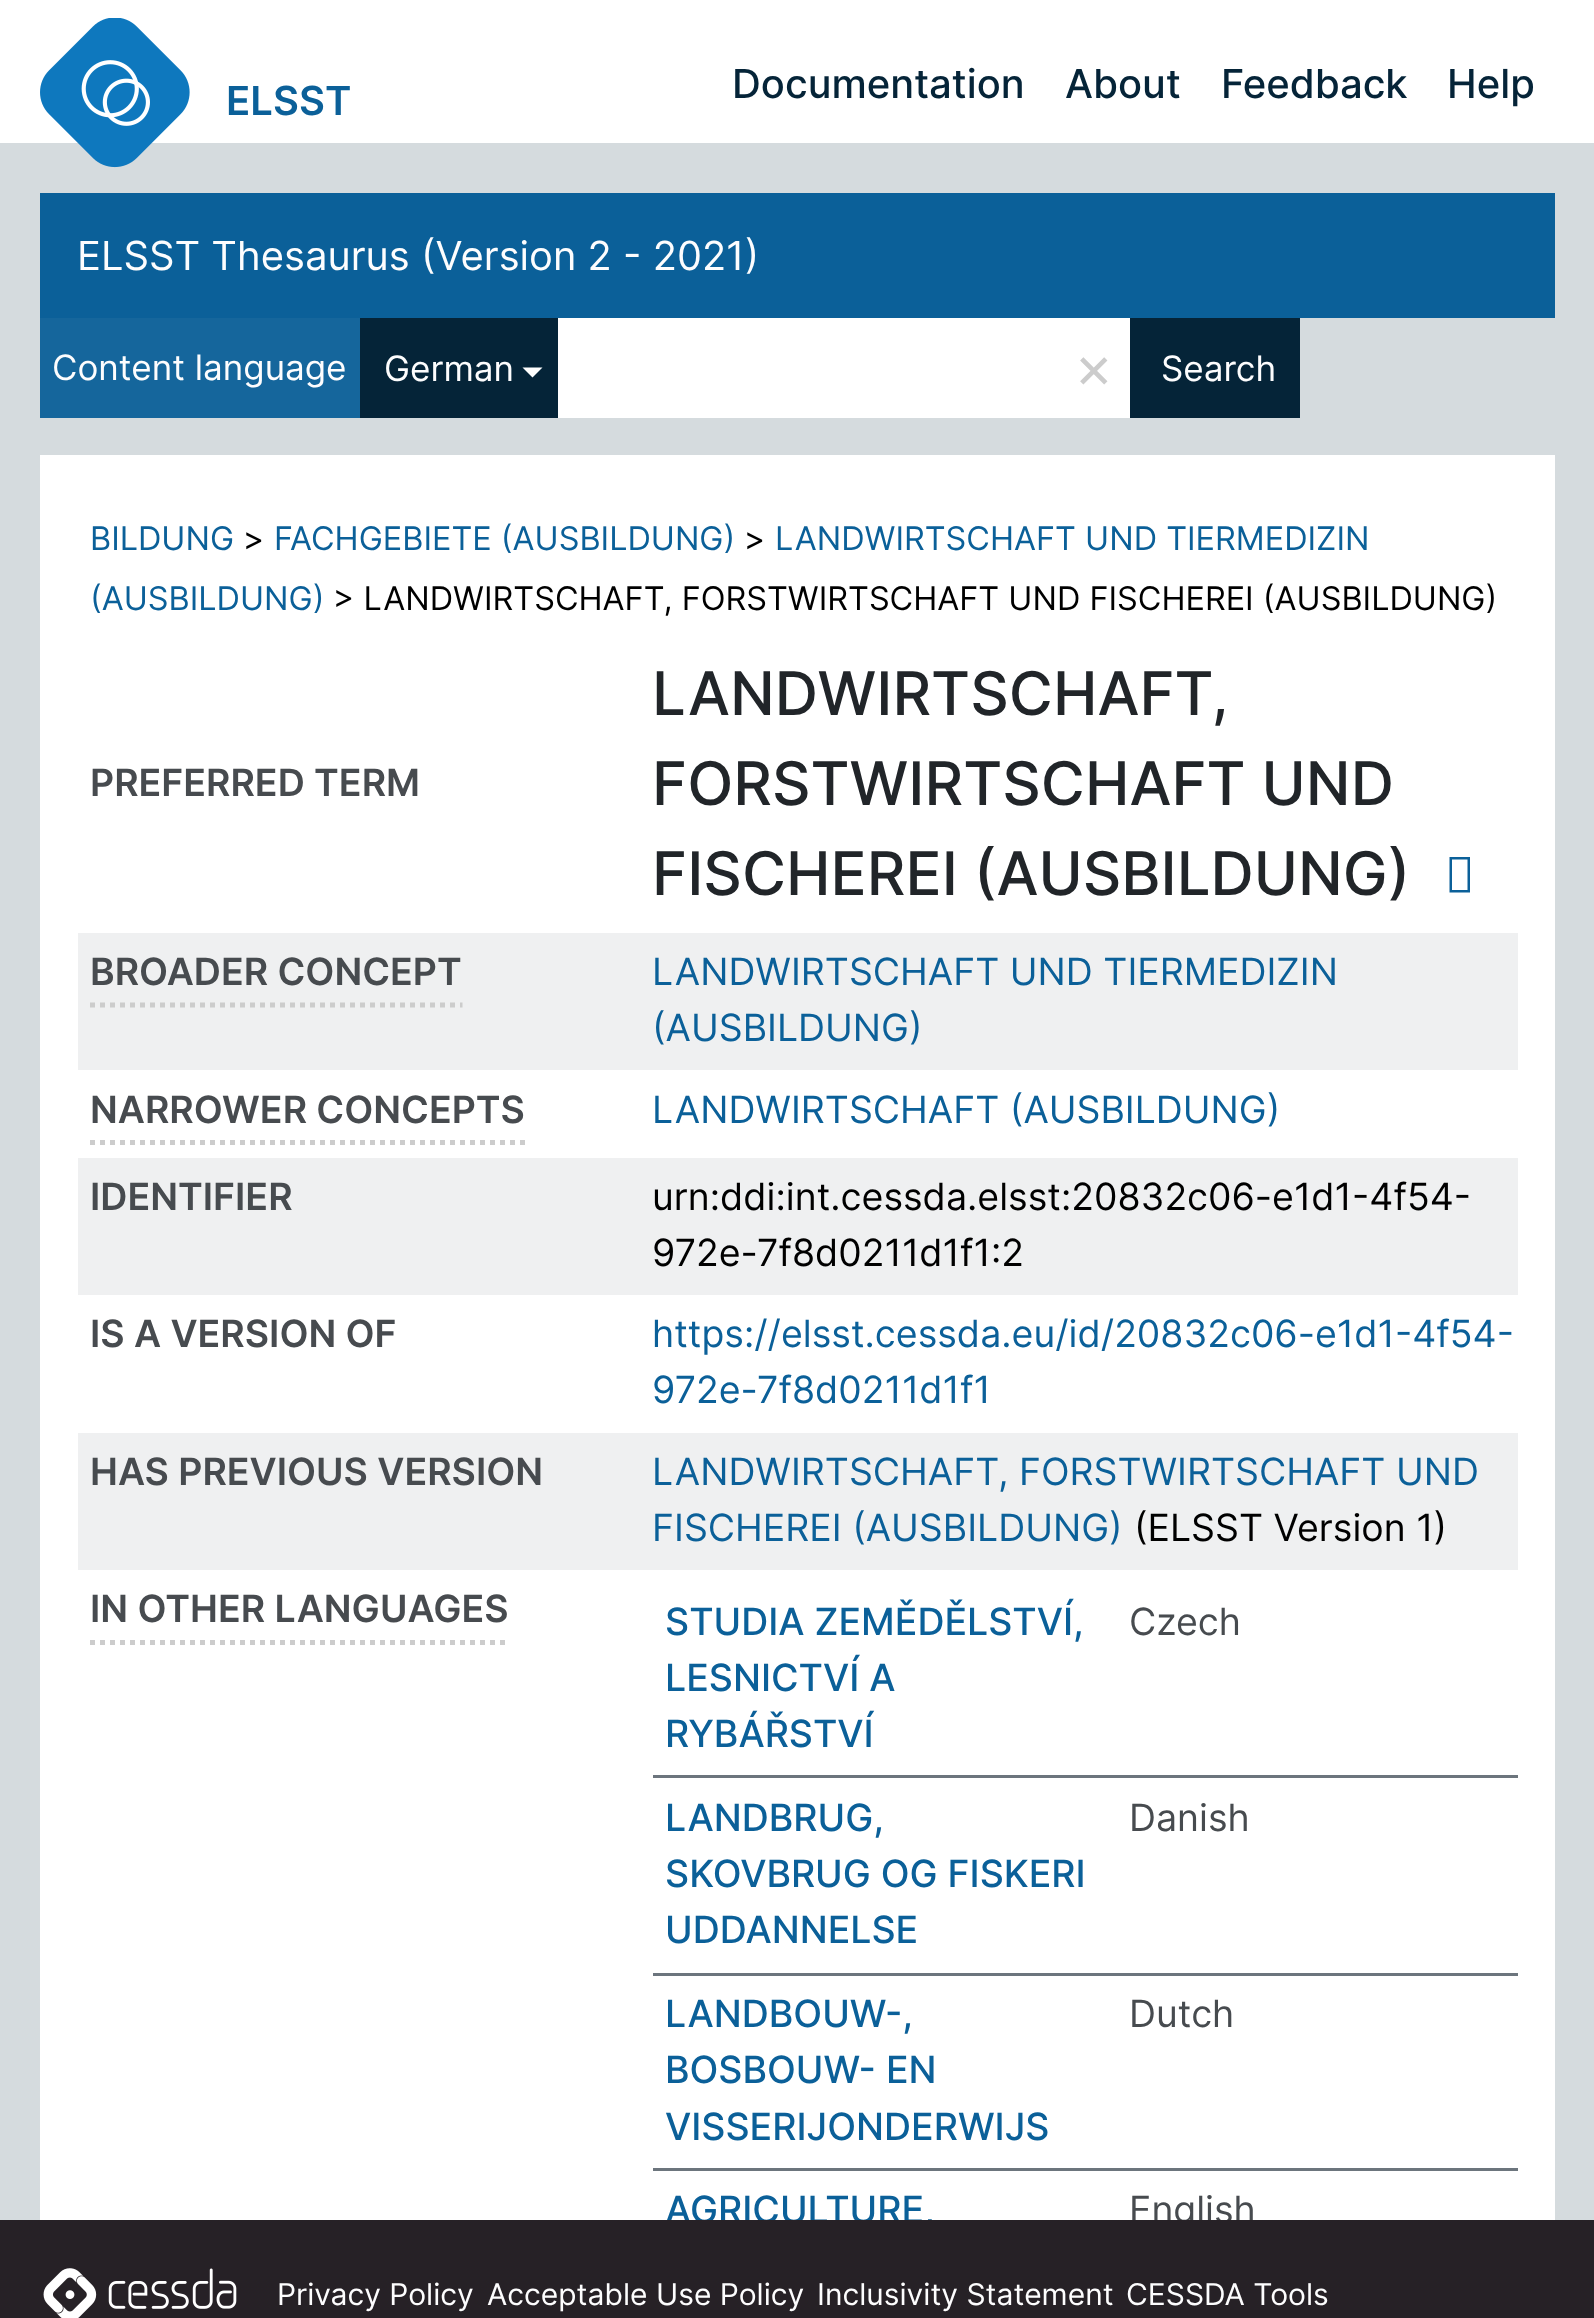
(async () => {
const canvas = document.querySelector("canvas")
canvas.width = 1594
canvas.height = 2318
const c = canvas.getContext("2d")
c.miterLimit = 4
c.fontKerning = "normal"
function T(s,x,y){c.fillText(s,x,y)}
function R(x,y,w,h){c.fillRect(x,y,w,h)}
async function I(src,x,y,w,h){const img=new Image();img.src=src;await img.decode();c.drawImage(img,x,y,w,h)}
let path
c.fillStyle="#d5dbde"
R(0,0,1594,2318)
c.fillStyle="#fff"
R(0,0,1594,143)
await I("1.png",40,18,150,150)
c.font="600 40px Inter"
c.fillStyle="#0b6099"
T("ELSST",226,115)
c.font="500 40px Inter"
c.fillStyle="#052438"
T("Documentation",732,98)
T("About",1065,98)
T("Feedback",1221,98)
T("Help",1447,98)
c.fillStyle="#0b6099"
R(40,193,1515,125)
c.font="40px Inter"
c.fillStyle="#fdfdfe"
T("ELSST Thesaurus (Version 2 - 2021)",77,270)
c.fillStyle="#15669c"
R(40,318,320,100)
c.font="35px Inter"
c.fillStyle="#fdfdfe"
T("Content language",52,380)
c.fillStyle="#052438"
R(360,318,198,100)
c.fillStyle="#fdfdfe"
T("German",384,381)
c.fillStyle="#fff"
path = new Path2D("M522.5 367.5h20l-10 10z")
c.fill(path)
R(558,318,572,100)
c.font="60px Inter"
c.fillStyle="#ccc"
T("×",1074,388)
c.fillStyle="#052438"
R(1130,318,170,100)
c.font="35px Inter"
c.fillStyle="#fdfdfe"
T("Search",1161,381)
c.fillStyle="#fff"
R(40,455,1515,1765)
c.font="32.5px Inter"
c.fillStyle="#0b6099"
T("BILDUNG",90,550)
c.fillStyle="#000"
T(">",243,550)
c.fillStyle="#0b6099"
T("FACHGEBIETE (AUSBILDUNG)",274,550)
c.fillStyle="#000"
T(">",744,550)
c.fillStyle="#0b6099"
T("LANDWIRTSCHAFT UND TIERMEDIZIN",775,550)
T("(AUSBILDUNG)",90,610)
c.fillStyle="#000"
T("> LANDWIRTSCHAFT, FORSTWIRTSCHAFT UND FISCHEREI (AUSBILDUNG)",333,610)
c.font="600 37.5px Inter"
c.fillStyle="#474b4f"
T("PREFERRED TERM",90,796)
c.font="500 60px Inter"
c.fillStyle="#212529"
T("LANDWIRTSCHAFT,",652,715)
T("FORSTWIRTSCHAFT UND",652,805)
T("FISCHEREI (AUSBILDUNG)",652,895)
c.fillStyle="#0b6099"
path = new Path2D("M1449.5 892.5v-35.5h20.5v35.5zm2.5-2.5h15.5v-30.5h-15.5z")
c.fill(path)
c.fillStyle="#eff0f1"
R(78,933,1440,137)
path = new Path2D("M90 1005h372.5")
c.strokeStyle="#ccc"
c.lineWidth=5
c.setLineDash([5,5])
c.stroke(path)
c.font="600 37.5px Inter"
c.fillStyle="#474b4f"
T("BROADER CONCEPT",90,985)
c.font="37.5px Inter"
c.fillStyle="#0b6099"
T("LANDWIRTSCHAFT UND TIERMEDIZIN",652,985)
T("(AUSBILDUNG)",652,1041)
path = new Path2D("M90 1142.5h435")
c.stroke(path)
c.font="600 37.5px Inter"
c.fillStyle="#474b4f"
T("NARROWER CONCEPTS",90,1123)
c.font="37.5px Inter"
c.fillStyle="#0b6099"
T("LANDWIRTSCHAFT (AUSBILDUNG)",652,1123)
c.fillStyle="#eff0f1"
R(78,1158,1440,137)
c.font="600 37.5px Inter"
c.fillStyle="#474b4f"
T("IDENTIFIER",90,1210)
c.font="37.5px Inter"
c.fillStyle="#000"
T("urn:ddi:int.cessda.elsst:20832c06-e1d1-4f54-",652,1210)
T("972e-7f8d0211d1f1:2",652,1266)
c.font="600 37.5px Inter"
c.fillStyle="#474b4f"
T("IS A VERSION OF",90,1347)
c.font="37.5px Inter"
c.fillStyle="#0b6099"
T("https://elsst.cessda.eu/id/20832c06-e1d1-4f54-",652,1347)
T("972e-7f8d0211d1f1",652,1403)
c.fillStyle="#eff0f1"
R(78,1433,1440,137)
c.font="600 37.5px Inter"
c.fillStyle="#474b4f"
T("HAS PREVIOUS VERSION",90,1485)
c.font="37.5px Inter"
c.fillStyle="#0b6099"
T("LANDWIRTSCHAFT, FORSTWIRTSCHAFT UND",652,1485)
T("FISCHEREI (AUSBILDUNG)",652,1541)
c.fillStyle="#000"
T("(ELSST Version 1)",1134,1541)
path = new Path2D("M90 1642.5h417.5")
c.stroke(path)
c.font="600 37.5px Inter"
c.fillStyle="#474b4f"
T("IN OTHER LANGUAGES",90,1622)
c.font="500 37.5px Inter"
c.fillStyle="#0b6099"
T("STUDIA ZEMĚDĚLSTVÍ,",665,1635)
T("LESNICTVÍ A",665,1691)
T("RYBÁŘSTVÍ",665,1747)
c.font="37.5px Inter"
c.fillStyle="#474b4f"
T("Czech",1129,1635)
c.fillStyle="#6c757d"
R(653,1775,865,3)
c.font="500 37.5px Inter"
c.fillStyle="#0b6099"
T("LANDBRUG,",665,1831)
T("SKOVBRUG OG FISKERI",665,1887)
T("UDDANNELSE",665,1943)
c.font="37.5px Inter"
c.fillStyle="#474b4f"
T("Danish",1129,1831)
c.fillStyle="#6c757d"
R(653,1973,865,3)
c.font="500 37.5px Inter"
c.fillStyle="#0b6099"
T("LANDBOUW-,",665,2027)
T("BOSBOUW- EN",665,2083)
T("VISSERIJONDERWIJS",665,2140)
c.font="37.5px Inter"
c.fillStyle="#474b4f"
T("Dutch",1129,2027)
c.fillStyle="#6c757d"
R(653,2168,865,3)
c.font="500 37.5px Inter"
c.fillStyle="#0b6099"
T("AGRICULTURE,",665,2223)
c.font="37.5px Inter"
c.fillStyle="#474b4f"
T("English",1129,2223)
c.fillStyle="#262126"
R(0,2220,1594,98)
await I("2.png",43,2268,194,50)
c.font="30px Inter"
c.fillStyle="#fdfdfe"
T("Privacy Policy",277,2305)
T("Acceptable Use Policy",487,2305)
T("Inclusivity Statement",817,2305)
T("CESSDA Tools",1126,2305)
})()
